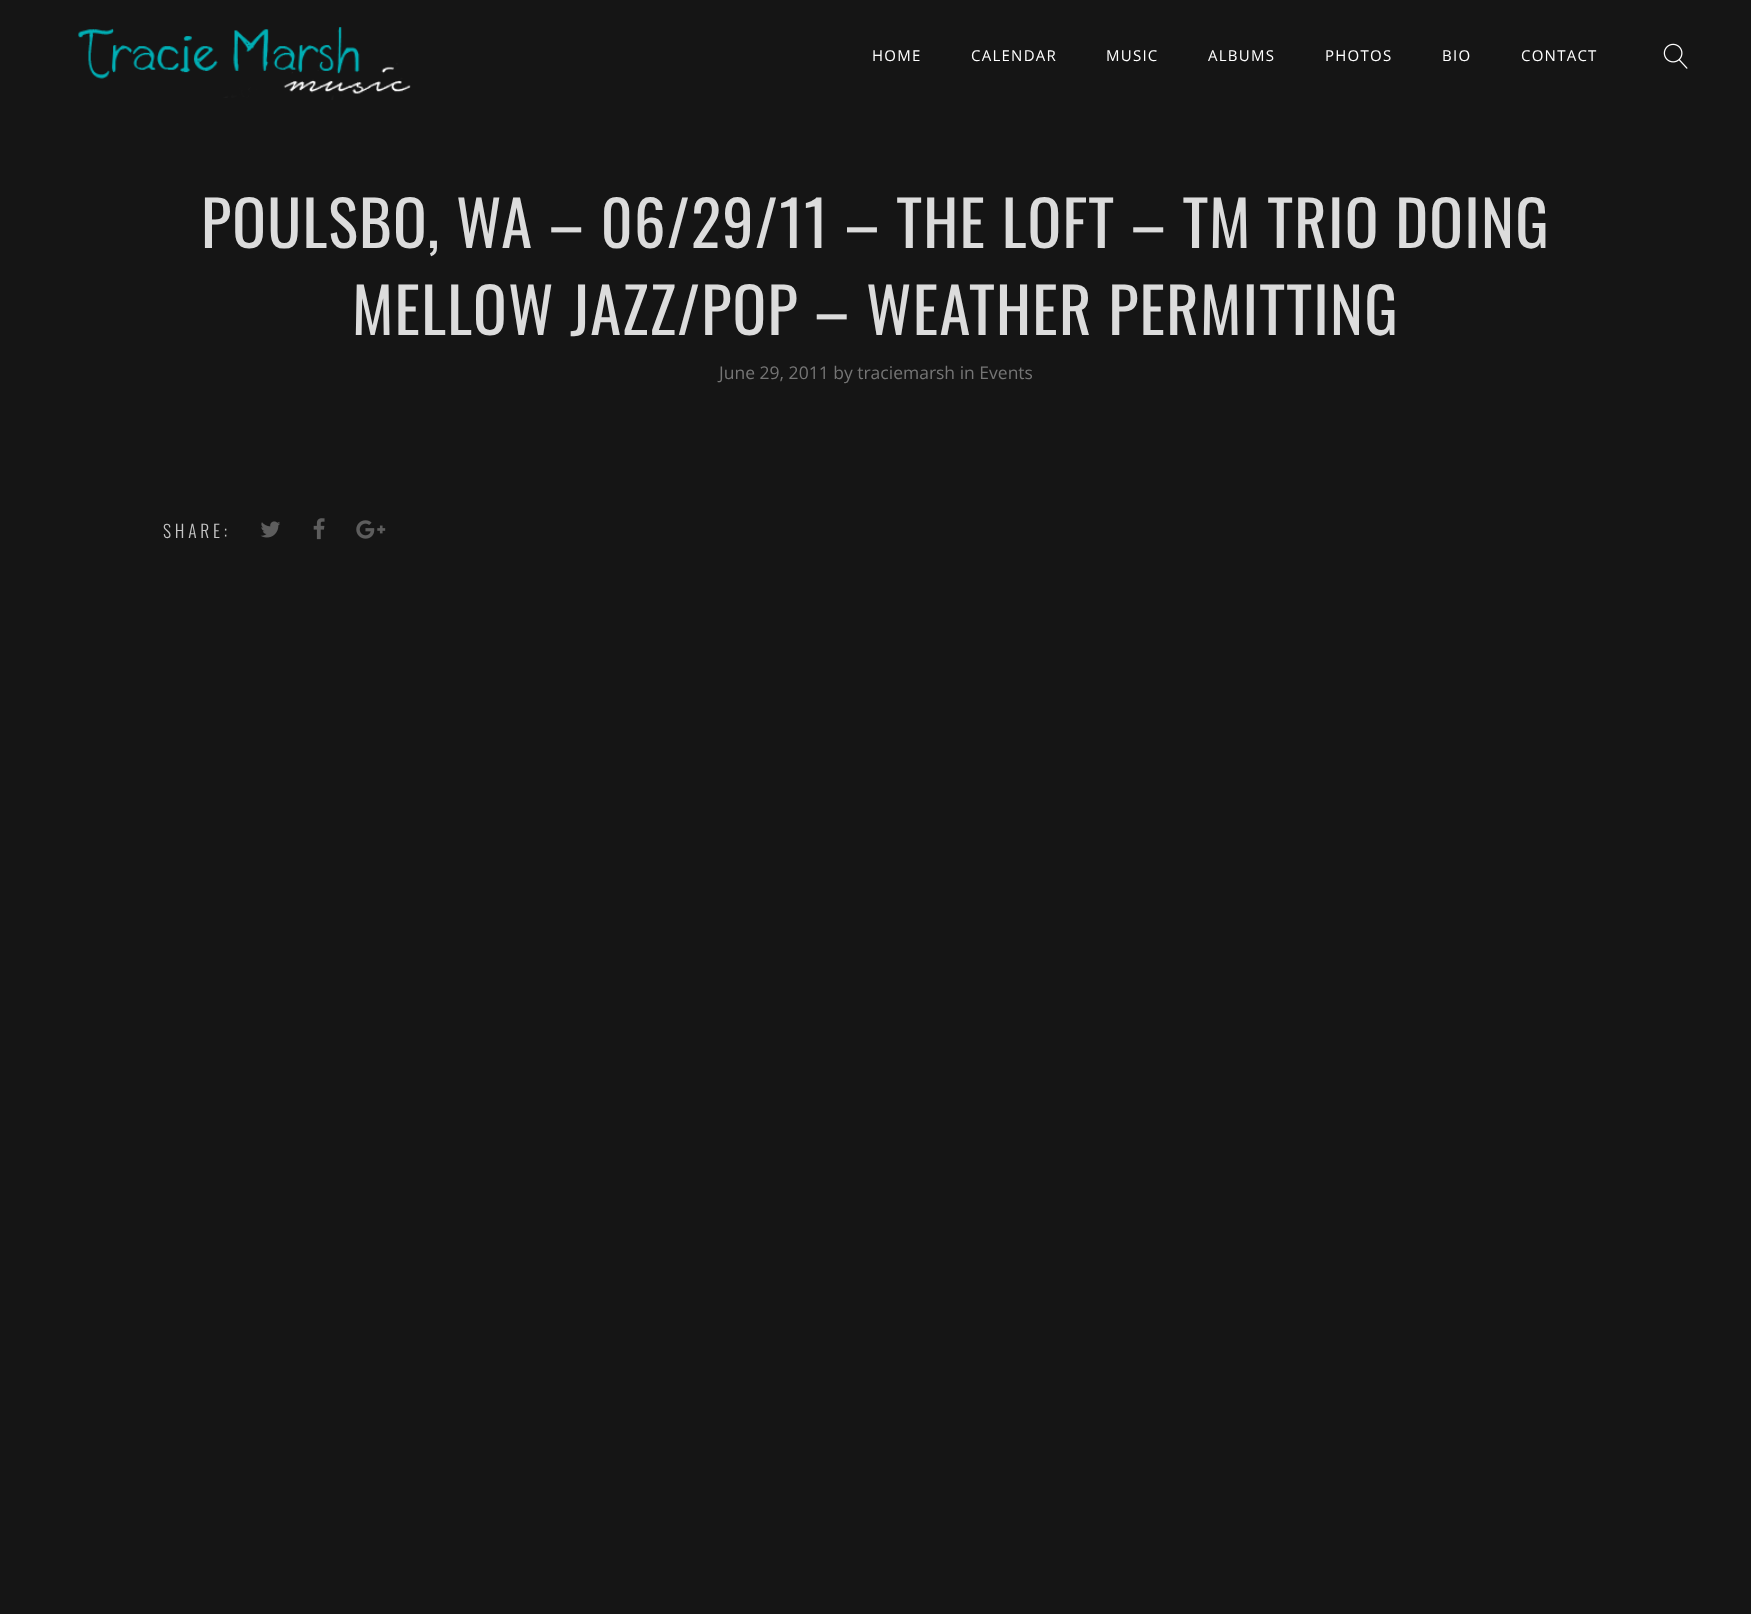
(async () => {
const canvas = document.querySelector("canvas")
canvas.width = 1751
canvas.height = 1614
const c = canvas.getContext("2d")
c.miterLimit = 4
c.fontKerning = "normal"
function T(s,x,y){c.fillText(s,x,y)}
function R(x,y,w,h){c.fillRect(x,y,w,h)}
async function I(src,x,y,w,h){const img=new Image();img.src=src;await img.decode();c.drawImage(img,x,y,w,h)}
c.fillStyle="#151515"
R(0,0,1751,1614)
await I("1.png",78,27,333,73)
c.letterSpacing="1.25px"
c.font="15px Open Sans"
c.fillStyle="#fff"
T("HOME",872,61)
T("CALENDAR",971,61)
T("MUSIC",1106,61)
T("ALBUMS",1208,61)
T("PHOTOS",1325,61)
T("BIO",1442,61)
T("CONTACT",1521,61)
await I("2.png",1663,43,25,26)
c.font="62.5px Oswald"
c.fillStyle="#dcdcdc"
T("POULSBO, WA – 06/29/11 – THE LOFT – TM TRIO DOING",201,248)
T("MELLOW JAZZ/POP – WEATHER PERMITTING",352,335)
c.letterSpacing="0px"
c.font="17.5px Open Sans"
c.fillStyle="#757575"
T("June 29, 2011 by traciemarsh in Events",719,379)
c.letterSpacing="3.75px"
c.font="300 17.5px Oswald"
c.fillStyle="#c5c5c5"
T("SHARE:",163,538)
await I("3.png",260,521,20,17)
await I("4.png",313,518,12,22)
await I("5.png",356,520,30,19)
})()
